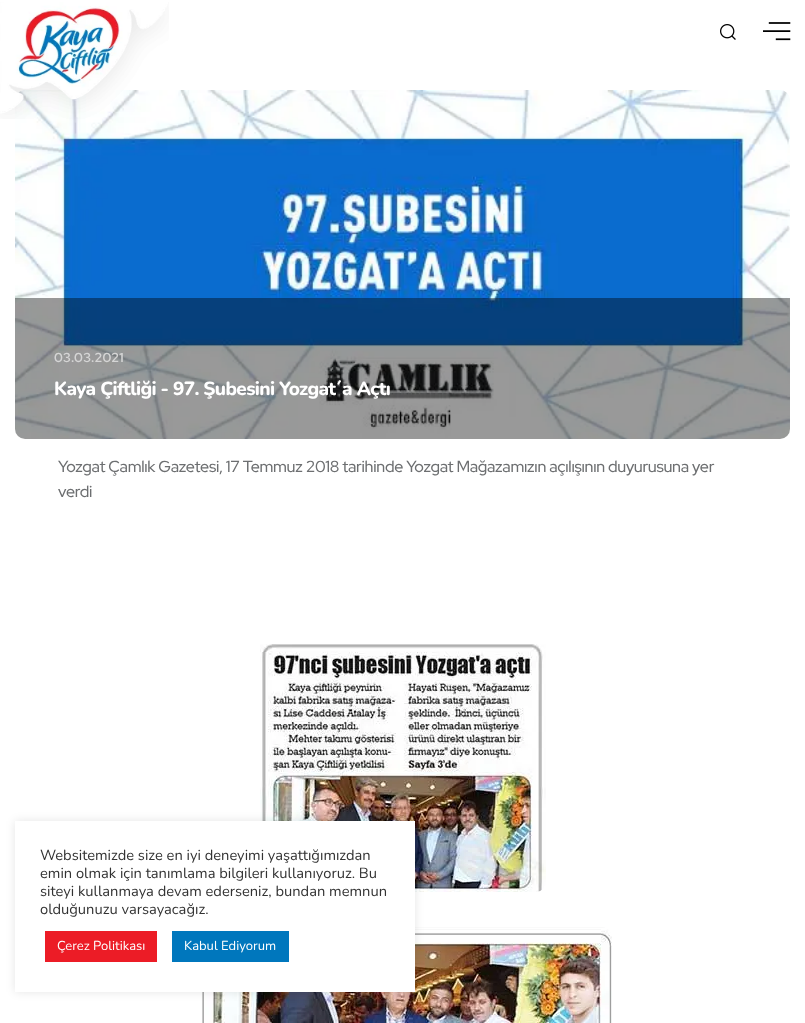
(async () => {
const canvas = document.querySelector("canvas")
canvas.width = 805
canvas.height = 1023
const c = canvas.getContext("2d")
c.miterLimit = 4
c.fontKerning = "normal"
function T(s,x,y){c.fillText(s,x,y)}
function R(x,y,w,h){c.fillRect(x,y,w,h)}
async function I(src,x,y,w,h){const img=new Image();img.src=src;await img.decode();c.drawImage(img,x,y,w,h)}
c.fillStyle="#fff"
R(0,0,805,1023)
await I("4.png",15,90,775,349)
await I("1.png",0,2,169,117)
await I("2.png",720,24,16,16)
await I("3.png",763,22,28,19)
c.fillStyle="#00000066"
c.beginPath()
c.roundRect(15,298,775,141,[0,0,10,10])
c.fill()
c.letterSpacing="0.25px"
c.font="bold 13px Red Hat Display"
c.fillStyle="#d5d5d5"
T("03.03.2021",54,362)
c.letterSpacing="-0.65px"
c.font="800 19px Nunito"
c.fillStyle="#fff"
T("Kaya Çiftliği - 97. Şubesini Yozgat´a Açtı",54,395)
c.letterSpacing="-0.27px"
c.font="500 16px Red Hat Display"
c.fillStyle="#6d6f71"
T("Yozgat Çamlık Gazetesi, 17 Temmuz 2018 tarihinde Yozgat Mağazamızın açılışının duyurusuna yer",58,472)
T("verdi",58,497)
await I("5.png",260,644,286,248)
await I("6.png",201,927,411,96)
c.fillStyle="#0000001a"
c.filter="blur(5px)"
c.beginPath()
c.rect(15,821,400,171)
c.fill()
c.filter="none"
c.fillStyle="#fff"
R(15,821,400,171)
c.letterSpacing="0px"
c.font="14.7px Nunito"
c.fillStyle="#333"
T("Websitemizde size en iyi deneyimi yaşattığımızdan",40,860)
T("emin olmak için tanımlama bilgileri kullanıyoruz. Bu",40,878)
T("siteyi kullanmaya devam ederseniz, bundan memnun",40,896)
T("olduğunuzu varsayacağız.",40,914)
c.fillStyle="#ec1c26"
R(45,931,112,31)
c.font="13px Nunito"
c.fillStyle="#fff"
T("Çerez Politikası",57,950)
c.fillStyle="#0077bd"
R(172,931,117,31)
c.fillStyle="#fff"
T("Kabul Ediyorum",184,950)
})()
